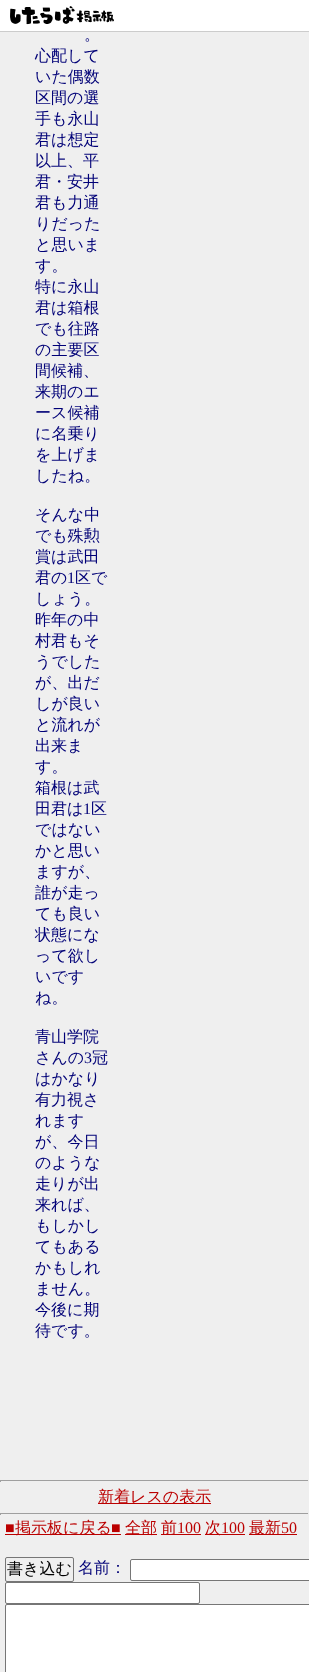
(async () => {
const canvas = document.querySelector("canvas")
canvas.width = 309
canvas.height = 1672
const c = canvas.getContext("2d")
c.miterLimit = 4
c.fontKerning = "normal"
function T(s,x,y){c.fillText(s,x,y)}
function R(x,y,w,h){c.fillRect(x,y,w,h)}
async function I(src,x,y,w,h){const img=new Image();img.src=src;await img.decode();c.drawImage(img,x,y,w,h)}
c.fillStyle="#efefef"
R(0,0,309,1672)
c.fillStyle="#fff"
R(0,0,309,31)
c.fillStyle="#ccc"
R(0,31,309,1)
await I("1.png",10,6,104,19)
c.font="500 16px WenQuanYi Zen Hei"
c.fillStyle="#007"
T("。",84,40)
T("心配して",35,61)
T("いた偶数",35,82)
T("区間の選",35,103)
T("手も永山",35,124)
T("君は想定",35,145)
T("以上、平",35,166)
T("君・安井",35,187)
T("君も力通",35,208)
T("りだった",35,229)
T("と思いま",35,250)
T("す。",35,271)
T("特に永山",35,292)
T("君は箱根",35,313)
T("でも往路",35,334)
T("の主要区",35,355)
T("間候補、",35,376)
T("来期のエ",35,397)
T("ース候補",35,418)
T("に名乗り",35,439)
T("を上げま",35,460)
T("したね。",35,481)
T("そんな中",35,520)
T("でも殊勲",35,541)
T("賞は武田",35,562)
T("君の",35,583)
c.font="16px Liberation Serif"
T("1",67,583)
c.font="500 16px WenQuanYi Zen Hei"
T("区で",75,583)
T("しょう。",35,604)
T("昨年の中",35,625)
T("村君もそ",35,646)
T("うでした",35,667)
T("が、出だ",35,688)
T("しが良い",35,709)
T("と流れが",35,730)
T("出来ま",35,751)
T("す。",35,772)
T("箱根は武",35,793)
T("田君は",35,814)
c.font="16px Liberation Serif"
T("1",83,814)
c.font="500 16px WenQuanYi Zen Hei"
T("区",91,814)
T("ではない",35,835)
T("かと思い",35,856)
T("ますが、",35,877)
T("誰が走っ",35,898)
T("ても良い",35,919)
T("状態にな",35,940)
T("って欲し",35,961)
T("いです",35,982)
T("ね。",35,1003)
T("青山学院",35,1042)
T("さんの",35,1063)
c.font="16px Liberation Serif"
T("3",84,1063)
c.font="500 16px WenQuanYi Zen Hei"
T("冠",92,1063)
T("はかなり",35,1084)
T("有力視さ",35,1105)
T("れます",35,1126)
T("が、今日",35,1147)
T("のような",35,1168)
T("走りが出",35,1189)
T("来れば、",35,1210)
T("もしかし",35,1231)
T("てもある",35,1252)
T("かもしれ",35,1273)
T("ません。",35,1294)
T("今後に期",35,1315)
T("待です。",35,1336)
c.fillStyle="#9f9f9f"
R(0,1480,309,1)
c.fillStyle="#eee"
R(308,1480,1,2)
c.fillStyle="#9f9f9f"
R(0,1480,1,2)
c.fillStyle="#b00"
R(98,1503,113,1)
T("新着レスの表示",98,1502)
c.fillStyle="#9f9f9f"
R(0,1513,309,1)
c.fillStyle="#eee"
R(308,1513,1,2)
c.fillStyle="#9f9f9f"
R(0,1513,1,2)
c.font="16px Liberation Serif"
c.fillStyle="#b00"
T("■",5,1533)
R(5,1534,116,1)
c.font="500 16px WenQuanYi Zen Hei"
T("掲示板に戻る",15,1533)
c.font="16px Liberation Serif"
T("■",111,1533)
R(125,1534,32,1)
c.font="500 16px WenQuanYi Zen Hei"
T("全部",125,1533)
R(161,1534,40,1)
T("前",161,1533)
c.font="16px Liberation Serif"
T("100",177,1533)
R(205,1534,40,1)
c.font="500 16px WenQuanYi Zen Hei"
T("次",205,1533)
c.font="16px Liberation Serif"
T("100",221,1533)
R(249,1534,48,1)
c.font="500 16px WenQuanYi Zen Hei"
T("最新",249,1533)
c.font="16px Liberation Serif"
T("50",281,1533)
c.beginPath()
c.roundRect(5.5,1557.5,68,24,1.5)
c.strokeStyle="#767676"
c.stroke()
c.font="500 16px WenQuanYi Zen Hei"
c.fillStyle="#000"
T("書き込む",7,1574)
c.fillStyle="#007"
T("名前：",78,1573)
c.fillStyle="#fff"
c.beginPath()
c.roundRect(130.5,1559.5,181,21,1.5)
c.fill()
c.stroke()
c.beginPath()
c.roundRect(5.5,1582.5,194,21,1.5)
c.fill()
c.stroke()
c.beginPath()
c.roundRect(5.5,1604.5,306,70,1.5)
c.fill()
c.stroke()
})()
